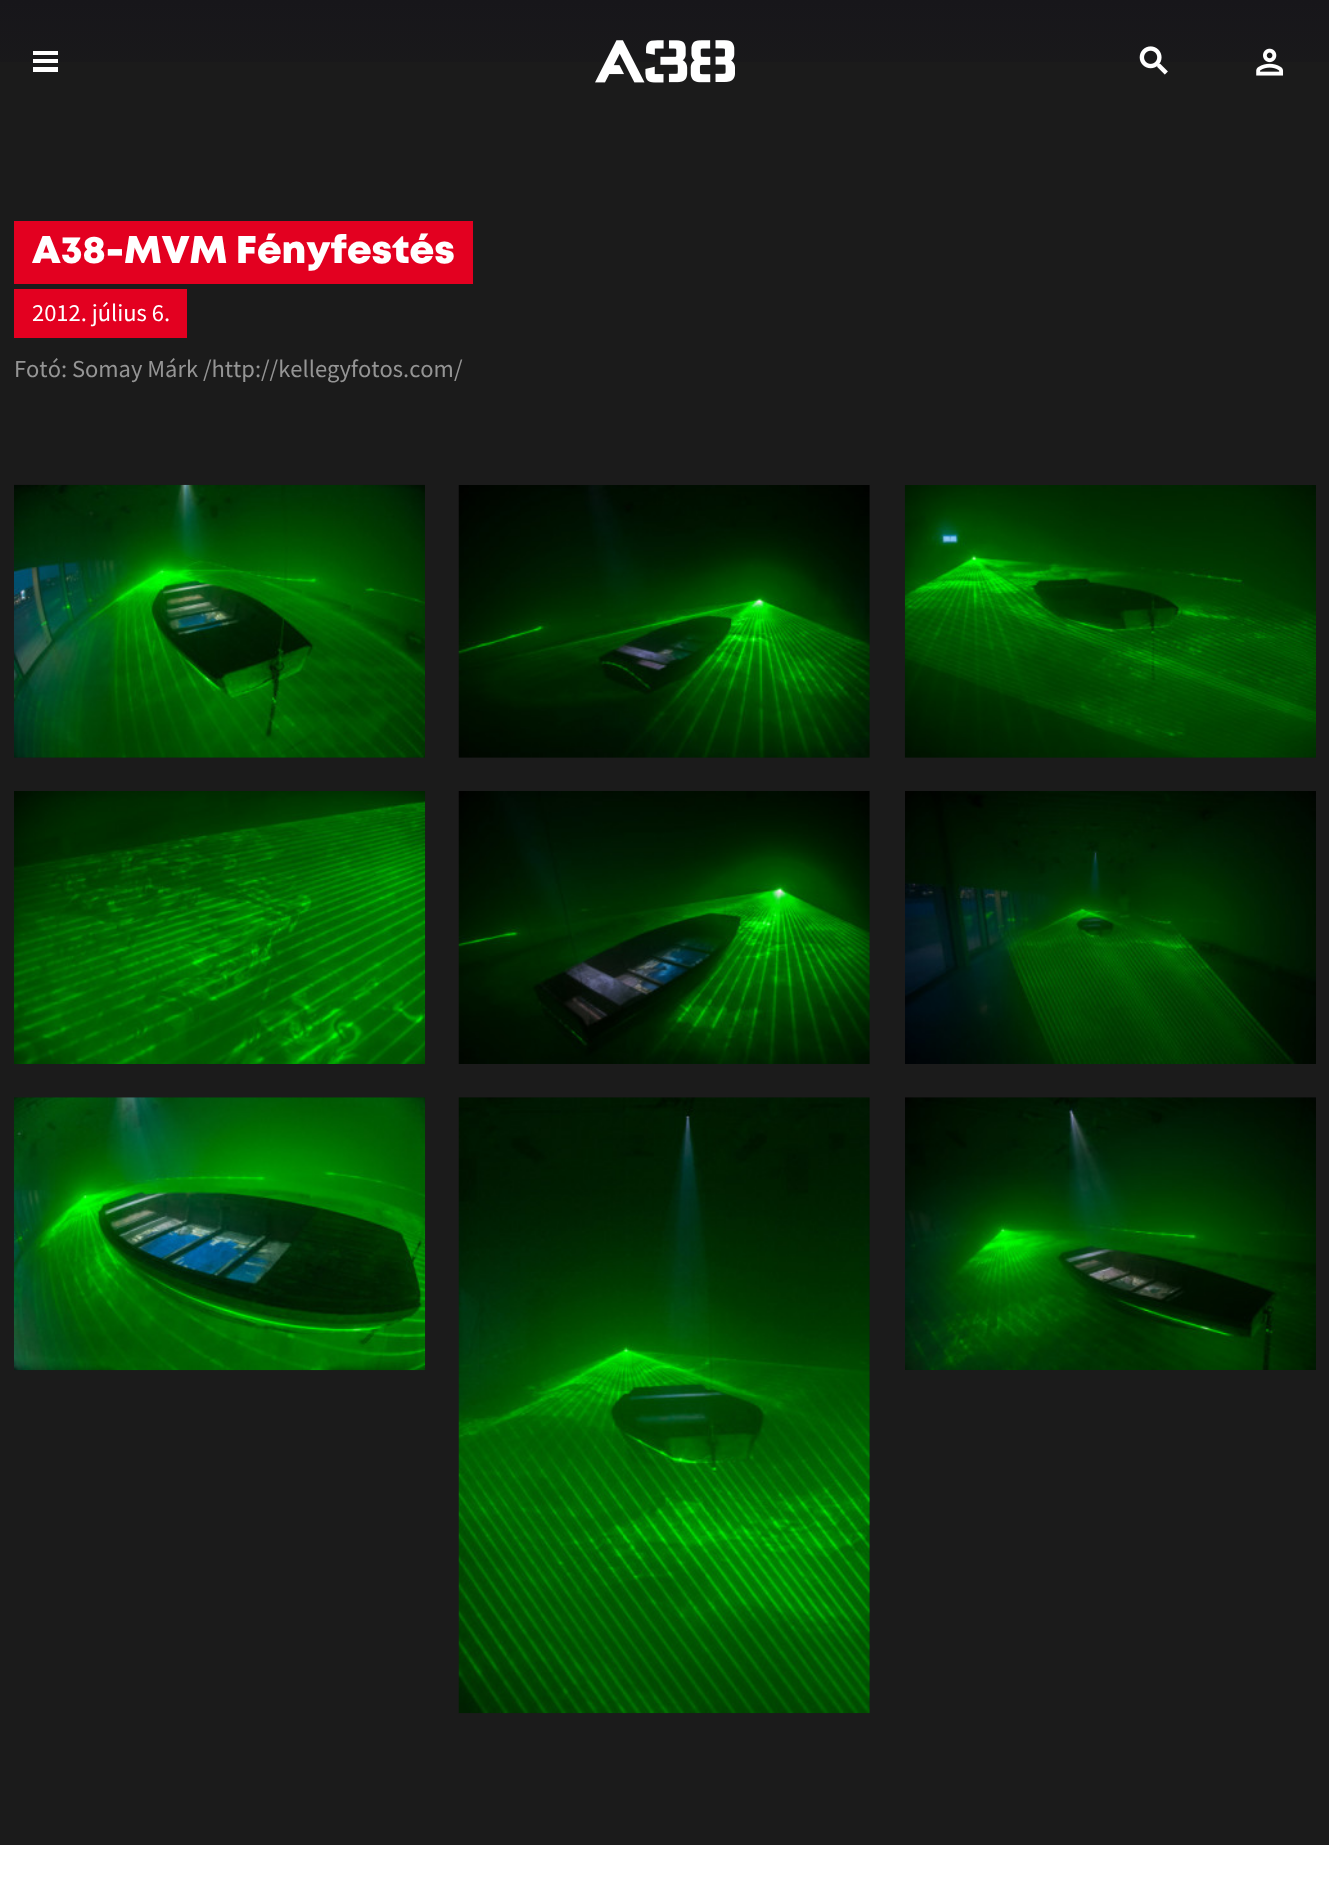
(async () => {
const canvas = document.querySelector("canvas")
canvas.width = 1329
canvas.height = 1881
const c = canvas.getContext("2d")
c.miterLimit = 4
c.fontKerning = "normal"
function T(s,x,y){c.fillText(s,x,y)}
function R(x,y,w,h){c.fillRect(x,y,w,h)}
async function I(src,x,y,w,h){const img=new Image();img.src=src;await img.decode();c.drawImage(img,x,y,w,h)}
let gradient
c.fillStyle="#1b1b1b"
R(0,0,1329,1881)
gradient = c.createLinearGradient(665,0,665,123)
gradient.addColorStop(0,"#17161a")
gradient.addColorStop(1,"#1b1b1b")
c.fillStyle = gradient
R(0,0,1329,62)
c.fillStyle="#fff"
R(33,51,25,4)
R(33,59,25,4)
R(33,67,25,5)
await I("1.png",595,40,140,43)
await I("2.png",1139,46,29,29)
await I("3.png",1256,48,28,28)
c.fillStyle="#e30020"
R(14,221,459,63)
c.font="38.5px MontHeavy"
c.fillStyle="#fff"
T("A38-MVM Fényfestés",32,263)
c.fillStyle="#e30020"
R(14,289,173,49)
c.font="24.5px Source Sans Pro"
c.fillStyle="#fff"
T("2012. július 6.",32,321)
c.fillStyle="#959595"
T("Fotó: Somay Márk /http://kellegyfotos.com/",14,377)
await I("4.png",14,484,411,274)
await I("5.png",458,485,412,273)
await I("6.png",904,485,412,273)
await I("7.png",14,791,412,273)
await I("8.png",458,791,412,273)
await I("9.png",905,791,411,273)
await I("10.png",14,1097,412,274)
await I("11.png",458,1097,412,617)
await I("12.png",905,1097,411,273)
c.fillStyle="#fff"
R(0,1845,1329,36)
})()
